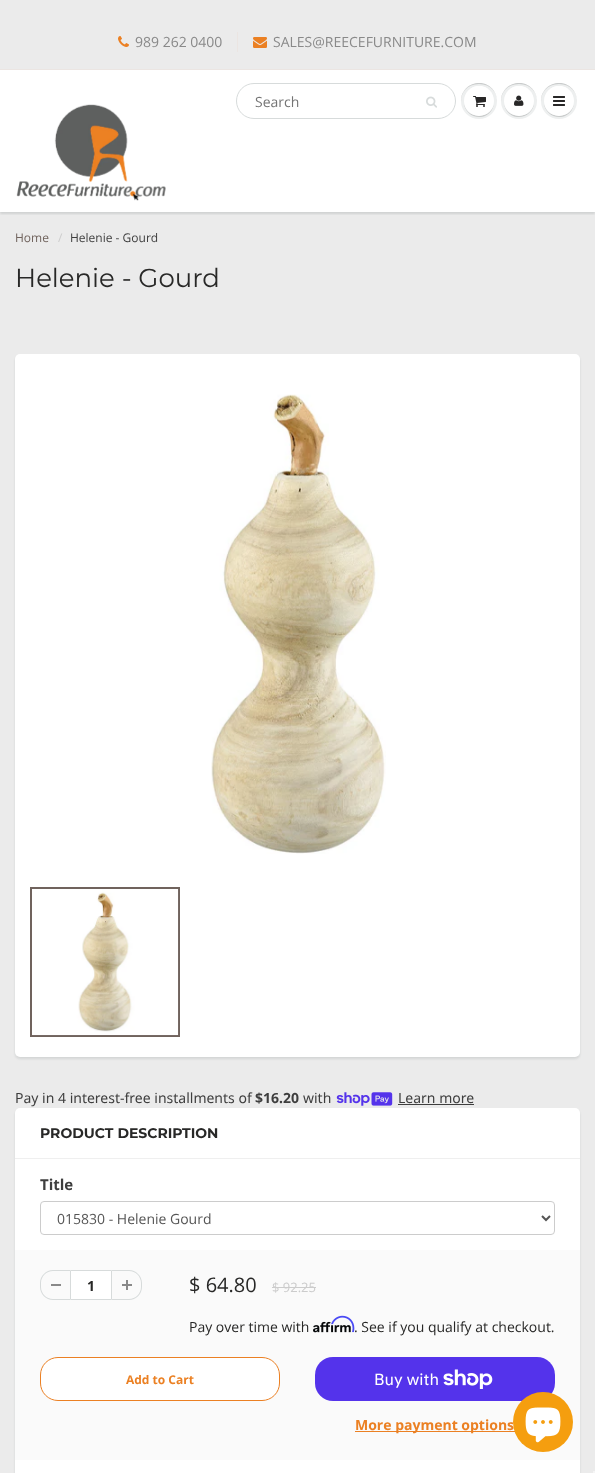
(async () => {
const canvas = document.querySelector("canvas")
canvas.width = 595
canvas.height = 1473
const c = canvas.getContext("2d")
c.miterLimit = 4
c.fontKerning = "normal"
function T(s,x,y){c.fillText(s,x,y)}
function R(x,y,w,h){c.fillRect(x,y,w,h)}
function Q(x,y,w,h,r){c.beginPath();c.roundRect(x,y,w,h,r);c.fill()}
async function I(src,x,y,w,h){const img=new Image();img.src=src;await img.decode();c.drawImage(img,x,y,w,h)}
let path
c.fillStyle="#fff"
R(0,0,595,1473)
c.fillStyle="#ebebeb"
R(0,0,595,69)
await I("1.png",118,36,11,11)
c.font="14px Open Sans"
c.fillStyle="#898989"
T("989 262 0400",135,47)
c.fillStyle="#ebe5e2"
R(237,32,1,20)
await I("2.png",253,37,14,11)
c.fillStyle="#898989"
T("SALES@REECEFURNITURE.COM",273,47)
c.fillStyle="#ebebeb"
R(0,212,595,1261)
c.save()
c.beginPath()
c.rect(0,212,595,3)
c.clip()
c.fillStyle="#0b191c1f"
c.filter="blur(1px)"
c.beginPath()
c.rect(0,71,595,143)
c.fill()
c.filter="none"
c.restore()
c.fillStyle="#ebe5e2"
R(0,69,595,1)
c.beginPath()
c.roundRect(236.5,83.5,219,35,17.5)
c.strokeStyle="#d7dbdb"
c.stroke()
c.fillStyle="#757575"
T("Search",255,107)
await I("3.png",426,96,11,12)
c.fillStyle="#edefef"
c.beginPath()
c.arc(479,101,18,0,7)
c.fill()
c.fillStyle="#c9cbcb"
path = new Path2D("M479 84c12 0 18 8.5 18 17.5c0-3.5-1-7.5-3-10.5c-10-15-33.5-7.5-33 10.5c0-9 6-17.5 18-17.5z")
c.fill(path)
path = new Path2D("M464 101.5c-.5 15 19 21.5 27.5 9c1.5-2.5 2.5-6 2.5-9c-.5 19-29.5 19-30 0z")
c.fill(path)
c.fillStyle="#fff"
c.beginPath()
c.arc(479,101,15,0,7)
c.fill()
path = new Path2D("M479 87c10 0 15 7 15 14.5c0-3-1-6.5-2.5-9c-8.5-12.5-28-6-27.5 9c0-7.5 5-14.5 15-14.5z")
c.fill(path)
await I("4.png",473,96,13,11)
c.fillStyle="#edefef"
c.beginPath()
c.arc(519,101,18,0,7)
c.fill()
c.fillStyle="#c9cbcb"
path = new Path2D("M519 84c12 0 18 8.5 18 17.5c0-3.5-1-7.5-3-10.5c-10-15-33.5-7.5-33 10.5c0-9 6-17.5 18-17.5z")
c.fill(path)
path = new Path2D("M534 101.5c-.5 19-29.5 19-30 0c0 3 1 6.5 2.5 9c8.5 12.5 28 6 27.5-9z")
c.fill(path)
c.fillStyle="#fff"
c.beginPath()
c.arc(519,101,15,0,7)
c.fill()
path = new Path2D("M519 87c10 0 15 7 15 14.5c0-3-1-6.5-2.5-9c-8.5-12.5-28-6-27.5 9c0-7.5 5-14.5 15-14.5z")
c.fill(path)
await I("5.png",514,95,10,11)
c.fillStyle="#edefef"
c.beginPath()
c.arc(559,101,18,0,7)
c.fill()
c.fillStyle="#c9cbcb"
path = new Path2D("M559 84c12 0 18 8.5 18 17.5c0-3.5-1-7.5-3-10.5c-10-15-33.5-7.5-33 10.5c0-9 6-17.5 18-17.5z")
c.fill(path)
path = new Path2D("M574 101.5c-.5 19-29.5 19-30 0c-.5 15 19 21.5 27.5 9c1.5-2.5 2.5-6 2.5-9z")
c.fill(path)
c.fillStyle="#fff"
c.beginPath()
c.arc(559,101,15,0,7)
c.fill()
path = new Path2D("M559 87c10 0 15 7 15 14.5c0-3-1-6.5-2.5-9c-8.5-12.5-28-6-27.5 9c0-7.5 5-14.5 15-14.5z")
c.fill(path)
await I("6.png",553,96,12,10)
await I("7.png",16,104,150,97)
c.font="12px Open Sans"
c.fillStyle="#70635d"
T("Home",15,242)
c.fillStyle="#ccc"
T("/",58,242)
c.fillStyle="#3e3e3e"
T("Helenie - Gourd",70,242)
c.font="26px Montserrat"
c.fillStyle="#282827"
T("Helenie - Gourd",15,287)
c.fillStyle="#0b191c1a"
c.filter="blur(1px)"
c.beginPath()
c.roundRect(15,356,565,703,5)
c.fill()
c.filter="none"
c.fillStyle="#fff"
Q(15,354,565,703,5)
await I("8.png",211,394,175,460)
c.strokeStyle="#70635d"
c.lineWidth=2
c.strokeRect(31,888,148,148)
await I("9.png",32,889,147,147)
c.font="14px Noto Sans"
c.fillStyle="#3e3e3e"
T("Pay in 4 interest-free installments of",15,1103)
c.font="bold 14px Noto Sans"
T("$16.20",255,1103)
c.font="14px Noto Sans"
T("with",303,1103)
await I("10.png",336,1092,57,14)
T("Learn more",398,1103)
R(398,1104,76,1)
c.fillStyle="#0b191c1a"
c.filter="blur(1px)"
c.beginPath()
c.roundRect(15,1110,565,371,5)
c.fill()
c.filter="none"
c.fillStyle="#fff"
Q(15,1108,565,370,5)
c.fillStyle="#efefef"
R(15,1158,565,1)
c.font="bold 14px Montserrat"
c.fillStyle="#282827"
T("PRODUCT DESCRIPTION",40,1138)
c.font="bold 15px Open Sans"
c.fillStyle="#3e3e3e"
T("Title",40,1190)
c.beginPath()
c.roundRect(40.5,1201.5,514,33,3.5)
c.strokeStyle="#ccc"
c.lineWidth=1
c.stroke()
path = new Path2D("M542 1216l4 4l4-4")
c.strokeStyle="#555"
c.lineWidth=2
c.stroke(path)
c.font="14px Open Sans"
c.fillStyle="#555"
T("015830 - Helenie Gourd",57,1224)
c.fillStyle="#fafafa"
R(15,1250,565,210)
c.fillStyle="#898989"
R(51,1284,10,2)
c.fillStyle="#d7dbdb"
path = new Path2D("M53 1270h17v30h-17c-7 0-13-6-13-13v-4c0-7 6-13 13-13zm0 1h17v28h-17c-6.5 0-12-5.5-12-12v-4c0-6.5 5.5-12 12-12z")
c.fill(path,"evenodd")
c.fillStyle="#fff"
c.beginPath()
c.rect(70.5,1270.5,41,29)
c.fill()
c.strokeStyle="#d7dbdb"
c.lineWidth=1
c.stroke()
c.font="bold 14px Open Sans"
c.fillStyle="#282827"
T("1",87,1291)
await I("11.png",122,1280,10,10)
c.fillStyle="#d7dbdb"
path = new Path2D("M112 1270h17c7 0 13 6 13 13v4c0 7-6 13-13 13h-17zm0 1h17c6.5 0 12 5.5 12 12v4c0 6.5-5.5 12-12 12h-17z")
c.fill(path,"evenodd")
c.font="20px Open Sans"
c.fillStyle="#282827"
T("$ 64.80",189,1292)
c.font="13px Open Sans"
c.fillStyle="#ccc"
T("$ 92.25",272,1292)
R(272,1287,44,1)
c.font="14px Open Sans"
c.fillStyle="#282827"
T("Pay over time with",189,1332)
await I("13.png",313,1321,38,12)
await I("12.png",331,1315,24,18)
T(". See if you qualify at checkout.",354,1332)
c.fillStyle="#fff"
c.beginPath()
c.roundRect(40.5,1357.5,239,43,17.5)
c.fill()
c.strokeStyle="#eb8023"
c.stroke()
c.font="bold 12px Open Sans"
c.fillStyle="#eb8023"
T("Add to Cart",126,1384)
c.fillStyle="#5433eb"
Q(315,1357,240,44,18)
c.font="16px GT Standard"
c.fillStyle="#fff"
T("Buy with",374,1385)
await I("14.png",443,1369,50,20)
c.fillStyle="#eb8023"
R(355,1431,160,1)
c.font="bold 14px Open Sans"
T("More payment options",355,1430)
c.fillStyle="#f59e0f"
c.beginPath()
c.arc(543,1422,30,0,7)
c.fill()
await I("15.png",525,1407,36,36)
c.fillStyle="#f5f5f5"
R(593,1471,2,2)
})()
